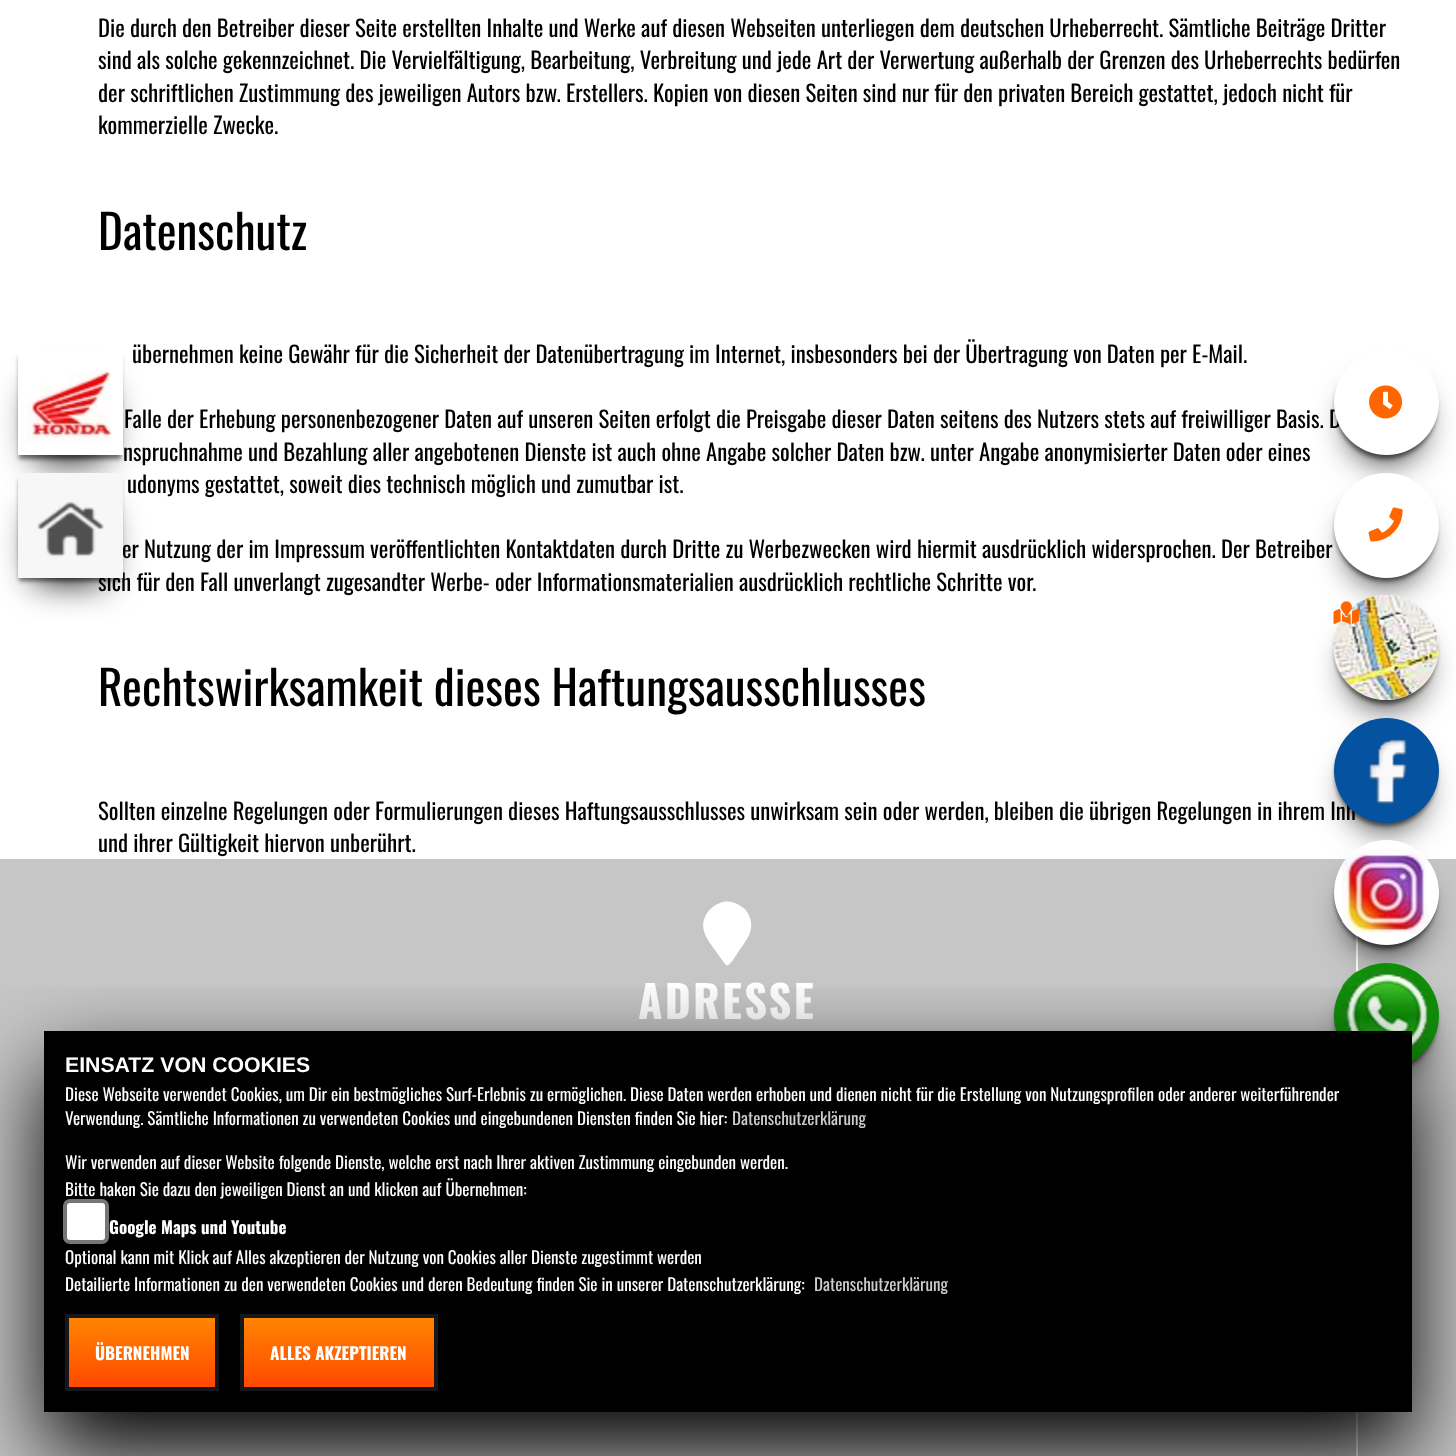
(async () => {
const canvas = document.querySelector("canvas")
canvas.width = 1456
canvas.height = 1456
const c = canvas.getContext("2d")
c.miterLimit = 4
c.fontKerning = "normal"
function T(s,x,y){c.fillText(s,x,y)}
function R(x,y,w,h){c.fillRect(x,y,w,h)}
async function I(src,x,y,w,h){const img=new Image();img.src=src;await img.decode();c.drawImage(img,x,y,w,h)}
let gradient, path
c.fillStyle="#fff"
R(0,0,1456,1456)
c.fillStyle="#000"
c.filter="blur(17.5px)"
c.beginPath()
c.rect(35,389,70,70)
c.fill()
c.filter="none"
c.fillStyle="#00000080"
c.filter="blur(2px)"
c.beginPath()
c.rect(19,357,102,102)
c.fill()
c.filter="none"
c.fillStyle="#fff"
R(18,350,105,105)
await I("1.png",26,371,86,72)
c.fillStyle="#000"
c.filter="blur(17.5px)"
c.beginPath()
c.rect(35,511,70,70)
c.fill()
c.filter="none"
c.fillStyle="#00000080"
c.filter="blur(2px)"
c.beginPath()
c.rect(19,480,102,101)
c.fill()
c.filter="none"
c.font="22.75px Oswald"
c.fillStyle="#000"
T("sich für den Fall unverlangt zugesandter Werbe- oder Informationsmaterialien ausdrücklich rechtliche Schritte vor.",98,591)
c.fillStyle="#f7f7f7"
R(18,473,105,105)
await I("2.png",37,501,67,56)
c.fillStyle="#000"
T("Die durch den Betreiber dieser Seite erstellten Inhalte und Werke auf diesen Webseiten unterliegen dem deutschen Urheberrecht. Sämtliche Beiträge Dritter",98,37)
T("sind als solche gekennzeichnet. Die Vervielfältigung, Bearbeitung, Verbreitung und jede Art der Verwertung außerhalb der Grenzen des Urheberrechts bedürfen",98,69)
T("der schriftlichen Zustimmung des jeweiligen Autors bzw. Erstellers. Kopien von diesen Seiten sind nur für den privaten Bereich gestattet, jedoch nicht für",98,102)
T("kommerzielle Zwecke.",98,134)
c.font="47.25px Oswald"
T("Datenschutz",98,250)
c.font="22.75px Oswald"
T("übernehmen keine Gewähr für die Sicherheit der Datenübertragung im Internet, insbesonders bei der Übertragung von Daten per E-Mail.",132,363)
T("Falle der Erhebung personenbezogener Daten auf unseren Seiten erfolgt die Preisgabe dieser Daten seitens des Nutzers stets auf freiwilliger Basis. D",124,428)
T("nspruchnahme und Bezahlung aller angebotenen Dienste ist auch ohne Angabe solcher Daten bzw. unter Angabe anonymisierter Daten oder eines",123,461)
T("udonyms gestattet, soweit dies technisch möglich und zumutbar ist.",127,493)
T("er Nutzung der im Impressum veröffentlichten Kontaktdaten durch Dritte zu Werbezwecken wird hiermit ausdrücklich widersprochen. Der Betreiber",122,558)
c.font="47.25px Oswald"
T("Rechtswirksamkeit dieses Haftungsausschlusses",98,706)
c.font="22.75px Oswald"
T("Sollten einzelne Regelungen oder Formulierungen dieses Haftungsausschlusses unwirksam sein oder werden, bleiben die übrigen Regelungen in ihrem Inh",98,820)
T("und ihrer Gültigkeit hiervon unberührt.",98,852)
c.fillStyle="#c6c6c6"
R(0,859,1456,597)
c.fillStyle="#fff"
R(1356,935,2,38)
path = new Path2D("M725 964l-13-18c-7-10-13-20-5-33c3-4 7-8 13-10c7-3 16-1 22 4c4 2 6 6 8 11c5 14-6 25-13 36l-4 6c-2 2-5 8-8 4z")
c.fill(path)
c.letterSpacing="2.25px"
c.font="bold 44.5px Oswald"
T("ADRESSE",638,1019)
R(1356,1412,2,44)
c.fillStyle="#000"
c.filter="blur(17.5px)"
c.beginPath()
c.roundRect(1351,389,70,70,35)
c.fill()
c.filter="none"
c.fillStyle="#00000080"
c.filter="blur(2px)"
c.beginPath()
c.roundRect(1335,357,102,102,51)
c.fill()
c.filter="none"
c.fillStyle="#fff"
c.beginPath()
c.arc(1386.5,402.5,52.5,0,7)
c.fill()
await I("3.png",1369,385,34,34)
c.fillStyle="#000"
c.filter="blur(17.5px)"
c.beginPath()
c.roundRect(1351,511,70,70,35)
c.fill()
c.filter="none"
c.fillStyle="#00000080"
c.filter="blur(2px)"
c.beginPath()
c.roundRect(1335,480,102,101,50.5)
c.fill()
c.filter="none"
c.fillStyle="#fff"
c.beginPath()
c.arc(1386.5,525.5,52.5,0,7)
c.fill()
await I("4.png",1368,507,35,35)
c.fillStyle="#000"
c.filter="blur(17.5px)"
c.beginPath()
c.roundRect(1351,634,70,70,35)
c.fill()
c.filter="none"
c.fillStyle="#00000080"
c.filter="blur(2px)"
c.beginPath()
c.roundRect(1335,602,102,102,51)
c.fill()
c.filter="none"
c.fillStyle="#f7f7f7"
c.beginPath()
c.arc(1386.5,647.5,52.5,0,7)
c.fill()
await I("5.png",1333,595,106,105)
await I("6.png",1333,601,27,24)
c.fillStyle="#000"
c.filter="blur(17.5px)"
c.beginPath()
c.roundRect(1351,756,70,70,35)
c.fill()
c.filter="none"
c.fillStyle="#00000080"
c.filter="blur(2px)"
c.beginPath()
c.roundRect(1335,725,102,101,50.5)
c.fill()
c.filter="none"
c.fillStyle="#0552a0"
c.beginPath()
c.arc(1386.5,770.5,52.5,0,7)
c.fill()
await I("7.png",1369,739,38,65)
c.fillStyle="#000"
c.filter="blur(17.5px)"
c.beginPath()
c.roundRect(1351,879,70,70,35)
c.fill()
c.filter="none"
c.fillStyle="#00000080"
c.filter="blur(2px)"
c.beginPath()
c.roundRect(1335,847,102,102,51)
c.fill()
c.filter="none"
c.fillStyle="#fff"
c.beginPath()
c.arc(1386.5,892.5,52.5,0,7)
c.fill()
await I("8.png",1341,849,89,88)
c.fillStyle="#000"
c.filter="blur(17.5px)"
c.beginPath()
c.roundRect(1351,1001,70,70,35)
c.fill()
c.filter="none"
c.fillStyle="#00000080"
c.filter="blur(2px)"
c.beginPath()
c.roundRect(1335,970,102,101,50.5)
c.fill()
c.filter="none"
c.fillStyle="#108e09"
c.beginPath()
c.arc(1386.5,1015.5,52.5,0,7)
c.fill()
await I("9.png",1341,971,90,88)
c.save()
c.beginPath()
c.rect(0,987,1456,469)
c.clip()
c.fillStyle="#000"
c.filter="blur(44px)"
c.beginPath()
c.rect(44,1069,1368,382)
c.fill()
c.filter="none"
c.restore()
c.fillStyle="#000"
R(44,1031,1368,381)
c.letterSpacing="0px"
c.font="bold 21.25px Liberation Sans"
c.fillStyle="#fff"
T("EINSATZ VON COOKIES",65,1072)
c.font="17.05px Oswald"
T("Diese Webseite verwendet Cookies, um Dir ein bestmögliches Surf-Erlebnis zu ermöglichen. Diese Daten werden erhoben und dienen nicht für die Erstellung von Nutzungsprofilen oder anderer weiterführender",65,1101)
T("Verwendung. Sämtliche Informationen zu verwendeten Cookies und eingebundenen Diensten finden Sie hier:",65,1125)
c.fillStyle="#ccc"
T("Datenschutzerklärung",732,1125)
c.fillStyle="#fff"
T("Wir verwenden auf dieser Website folgende Dienste, welche erst nach Ihrer aktiven Zustimmung eingebunden werden.",65,1169)
T("Bitte haken Sie dazu den jeweiligen Dienst an und klicken auf Übernehmen:",65,1196)
c.beginPath()
c.roundRect(65,1201,42,41,5)
c.fill()
c.strokeStyle="#767676"
c.lineWidth=4
c.stroke()
c.font="bold 17.05px Oswald"
T("Google Maps und Youtube",109,1234)
c.font="17.05px Oswald"
T("Optional kann mit Klick auf Alles akzeptieren der Nutzung von Cookies aller Dienste zugestimmt werden",65,1264)
T("Detailierte Informationen zu den verwendeten Cookies und deren Bedeutung finden Sie in unserer Datenschutzerklärung:",65,1291)
c.fillStyle="#ccc"
T("Datenschutzerklärung",814,1291)
gradient = c.createLinearGradient(142,1318,142,1388)
gradient.addColorStop(0,"#ff8400")
gradient.addColorStop(.99,"#ff4900")
c.fillStyle = gradient
R(69,1318,146,69)
c.strokeStyle="#16171a"
c.strokeRect(67,1316,150,73)
c.font="bold 17.05px Oswald"
c.fillStyle="#fff"
T("ÜBERNEHMEN",95,1360)
gradient = c.createLinearGradient(339,1318,339,1388)
gradient.addColorStop(0,"#ff8400")
gradient.addColorStop(.99,"#ff4900")
c.fillStyle = gradient
R(244,1318,190,69)
c.strokeRect(242,1316,194,73)
c.fillStyle="#fff"
T("ALLES AKZEPTIEREN",270,1360)
})()
